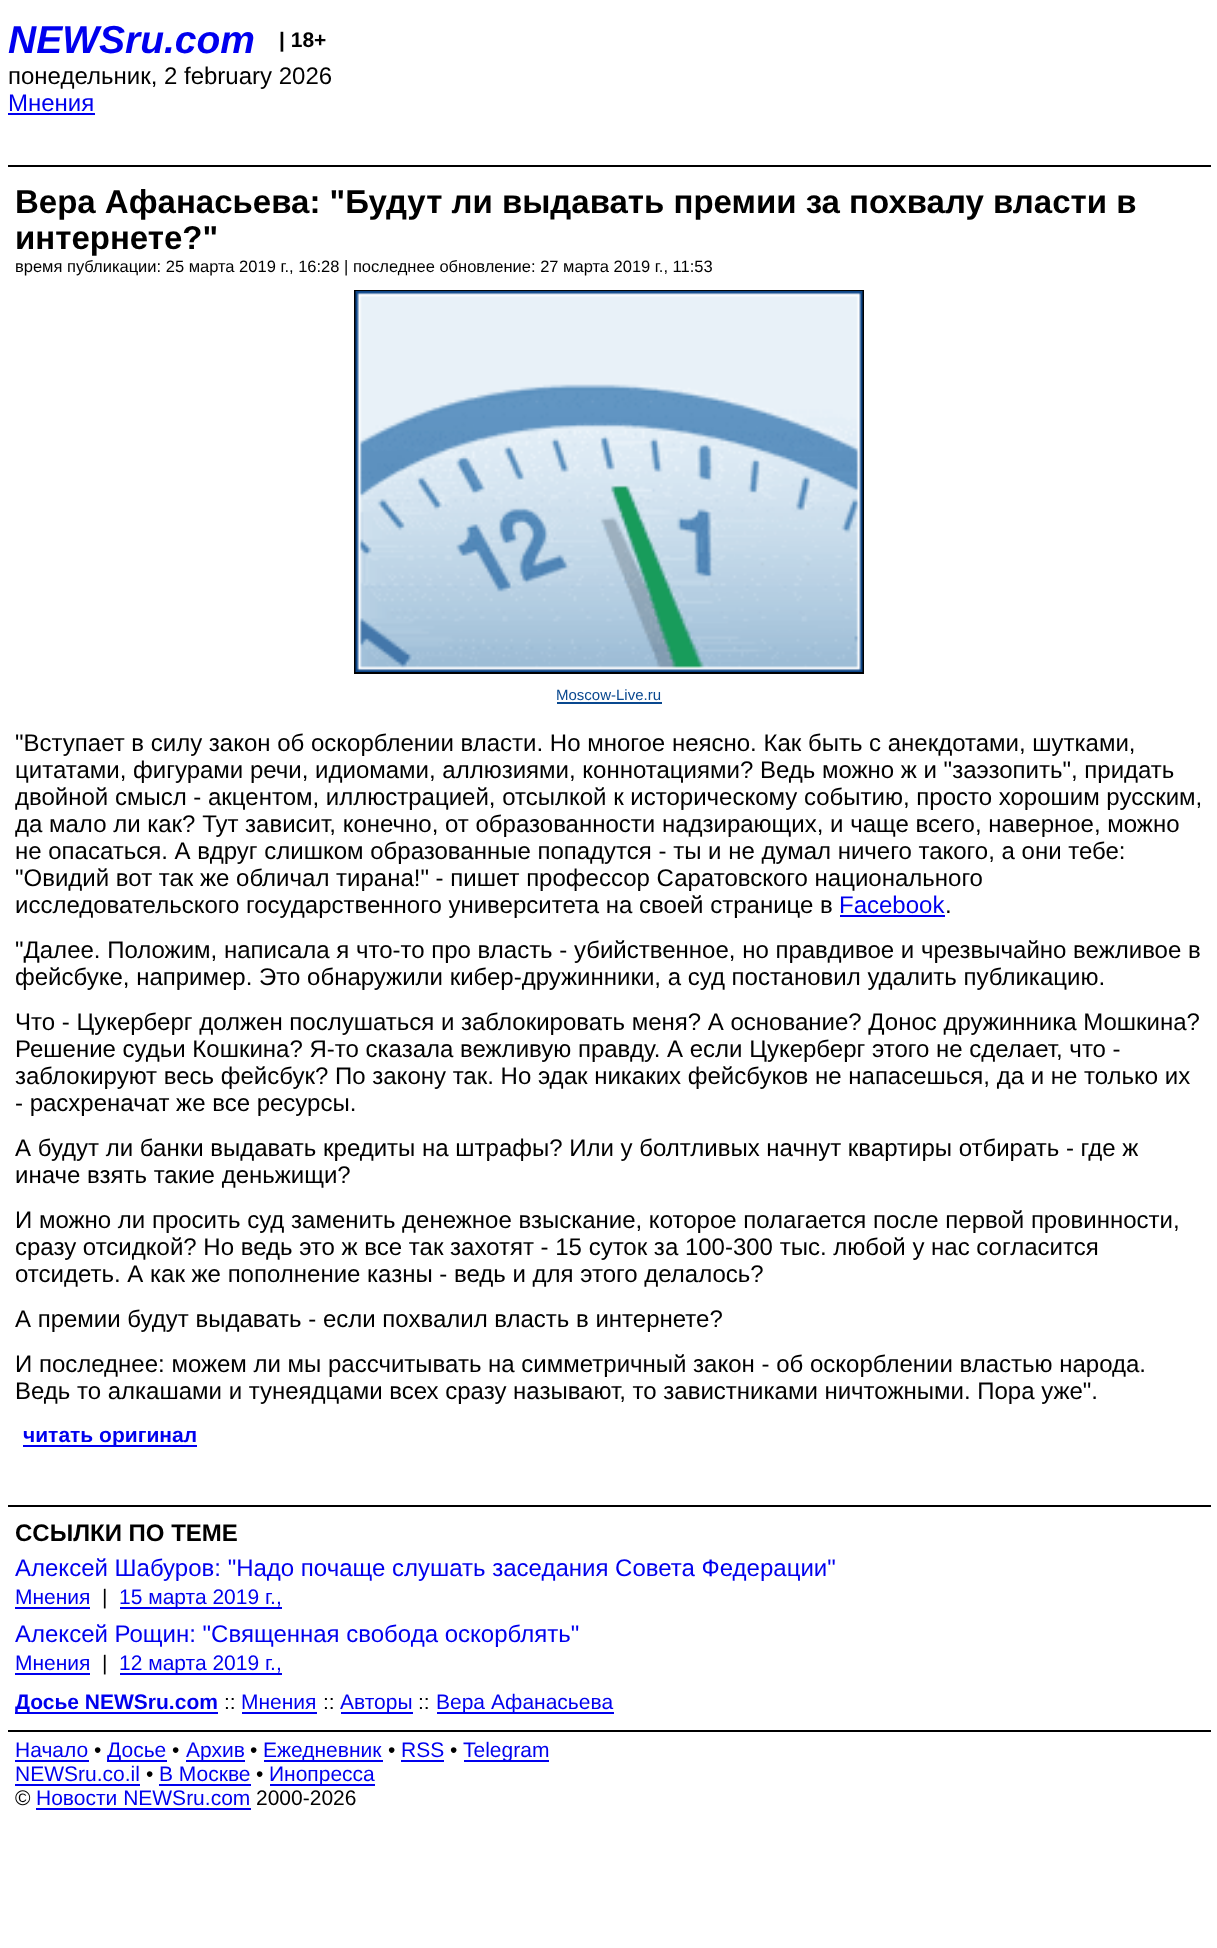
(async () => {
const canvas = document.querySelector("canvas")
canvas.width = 1217
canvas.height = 1948
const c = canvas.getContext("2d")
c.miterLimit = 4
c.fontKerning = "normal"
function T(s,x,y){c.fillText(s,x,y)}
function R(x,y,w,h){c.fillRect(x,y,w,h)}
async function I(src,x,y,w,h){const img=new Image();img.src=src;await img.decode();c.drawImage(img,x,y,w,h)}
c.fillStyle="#fff"
R(0,0,1217,1948)
c.fillStyle="#000"
R(8,165,1203,2)
c.font="italic bold 39px Liberation Sans"
c.fillStyle="#00e"
T("NEWSru.com",8,53)
c.font="bold 21px Liberation Sans"
c.fillStyle="#000"
T("| 18+",279,47)
c.font="24px Liberation Sans"
T("понедельник, 2 february 2026",8,84)
c.fillStyle="#00e"
T("Мнения",8,111)
R(8,113,87,2)
c.fillStyle="#000"
R(8,1505,1203,2)
c.font="bold 33px Liberation Sans"
T("Вера Афанасьева: \"Будут ли выдавать премии за похвалу власти в",15,213)
T("интернете?\"",15,249)
c.font="16.5px Liberation Sans"
T("время публикации: 25 марта 2019 г., 16:28 | последнее обновление: 27 марта 2019 г., 11:53",15,272)
c.strokeStyle="#000"
c.lineWidth=2
c.strokeRect(355,291,508,382)
await I("1.png",355,291,508,381)
c.font="15px Liberation Sans"
c.fillStyle="#09488f"
T("Moscow-Live.ru",556,700)
R(557,702,105,2)
c.font="24px Liberation Sans"
c.fillStyle="#000"
T("\"Вступает в силу закон об оскорблении власти. Но многое неясно. Как быть с анекдотами, шутками,",15,751)
T("цитатами, фигурами речи, идиомами, аллюзиями, коннотациями? Ведь можно ж и \"заэзопить\", придать",15,778)
T("двойной смысл - акцентом, иллюстрацией, отсылкой к историческому событию, просто хорошим русским,",15,805)
T("да мало ли как? Тут зависит, конечно, от образованности надзирающих, и чаще всего, наверное, можно",15,832)
T("не опасаться. А вдруг слишком образованные попадутся - ты и не думал ничего такого, а они тебе:",15,859)
T("\"Овидий вот так же обличал тирана!\" - пишет профессор Саратовского национального",15,886)
T("исследовательского государственного университета на своей странице в",15,913)
c.fillStyle="#00e"
T("Facebook",839,913)
R(840,915,105,2)
c.fillStyle="#000"
T(".",945,913)
T("\"Далее. Положим, написала я что-то про власть - убийственное, но правдивое и чрезвычайно вежливое в",15,958)
T("фейсбуке, например. Это обнаружили кибер-дружинники, а суд постановил удалить публикацию.",15,985)
T("Что - Цукерберг должен послушаться и заблокировать меня? А основание? Донос дружинника Мошкина?",15,1030)
T("Решение судьи Кошкина? Я-то сказала вежливую правду. А если Цукерберг этого не сделает, что -",15,1057)
T("заблокируют весь фейсбук? По закону так. Но эдак никаких фейсбуков не напасешься, да и не только их",15,1084)
T("- расхреначат же все ресурсы.",15,1111)
T("А будут ли банки выдавать кредиты на штрафы? Или у болтливых начнут квартиры отбирать - где ж",15,1156)
T("иначе взять такие деньжищи?",15,1183)
T("И можно ли просить суд заменить денежное взыскание, которое полагается после первой провинности,",15,1228)
T("сразу отсидкой? Но ведь это ж все так захотят - 15 суток за 100-300 тыс. любой у нас согласится",15,1255)
T("отсидеть. А как же пополнение казны - ведь и для этого делалось?",15,1282)
T("А премии будут выдавать - если похвалил власть в интернете?",15,1327)
T("И последнее: можем ли мы рассчитывать на симметричный закон - об оскорблении властью народа.",15,1372)
T("Ведь то алкашами и тунеядцами всех сразу называют, то завистниками ничтожными. Пора уже\".",15,1399)
c.fillStyle="#00e"
R(23,1445,174,2)
c.font="bold 21px Liberation Sans"
T("читать оригинал",23,1442)
c.font="bold 24px Liberation Sans"
c.fillStyle="#000"
T("ССЫЛКИ ПО ТЕМЕ",15,1541)
c.font="24px Liberation Sans"
c.fillStyle="#00e"
T("Алексей Шабуров: \"Надо почаще слушать заседания Совета Федерации\"",15,1576)
c.font="21px Liberation Sans"
T("Мнения",15,1604)
R(15,1607,75,2)
c.fillStyle="#000"
T("|",102,1604)
c.fillStyle="#00e"
R(120,1607,162,2)
T("15 марта 2019 г.,",119,1604)
c.font="24px Liberation Sans"
T("Алексей Рощин: \"Священная свобода оскорблять\"",15,1642)
c.font="21px Liberation Sans"
T("Мнения",15,1670)
R(15,1673,75,2)
c.fillStyle="#000"
T("|",102,1670)
c.fillStyle="#00e"
R(120,1673,162,2)
T("12 марта 2019 г.,",119,1670)
R(15,1712,203,2)
c.font="bold 21px Liberation Sans"
T("Досье NEWSru.com",15,1709)
c.font="21px Liberation Sans"
c.fillStyle="#000"
T("::",224,1709)
c.fillStyle="#00e"
T("Мнения",241,1709)
R(242,1712,75,2)
c.fillStyle="#000"
T("::",323,1709)
c.fillStyle="#00e"
R(341,1712,72,2)
T("Авторы",340,1709)
c.fillStyle="#000"
T("::",418,1709)
c.fillStyle="#00e"
R(437,1712,177,2)
T("Вера Афанасьева",436,1709)
c.fillStyle="#000"
R(8,1730,1203,2)
c.fillStyle="#00e"
T("Начало",15,1757)
R(15,1760,74,2)
c.fillStyle="#000"
T("•",94,1757)
c.fillStyle="#00e"
R(107,1760,60,2)
T("Досье",107,1757)
c.fillStyle="#000"
T("•",172,1757)
c.fillStyle="#00e"
R(186,1760,59,2)
T("Архив",186,1757)
c.fillStyle="#000"
T("•",250,1757)
c.fillStyle="#00e"
R(264,1760,119,2)
T("Ежедневник",263,1757)
c.fillStyle="#000"
T("•",388,1757)
c.fillStyle="#00e"
T("RSS",401,1757)
R(401,1760,43,2)
c.fillStyle="#000"
T("•",450,1757)
c.fillStyle="#00e"
R(464,1760,85,2)
T("Telegram",463,1757)
T("NEWSru.co.il",15,1781)
R(15,1784,125,2)
c.fillStyle="#000"
T("•",146,1781)
c.fillStyle="#00e"
T("В Москве",159,1781)
R(159,1784,92,2)
c.fillStyle="#000"
T("•",256,1781)
c.fillStyle="#00e"
R(270,1784,105,2)
T("Инопресса",269,1781)
c.fillStyle="#000"
T("©",15,1805)
c.fillStyle="#00e"
T("Новости NEWSru.com",36,1805)
R(36,1808,215,2)
c.fillStyle="#000"
T("2000-2026",256,1805)
})()
